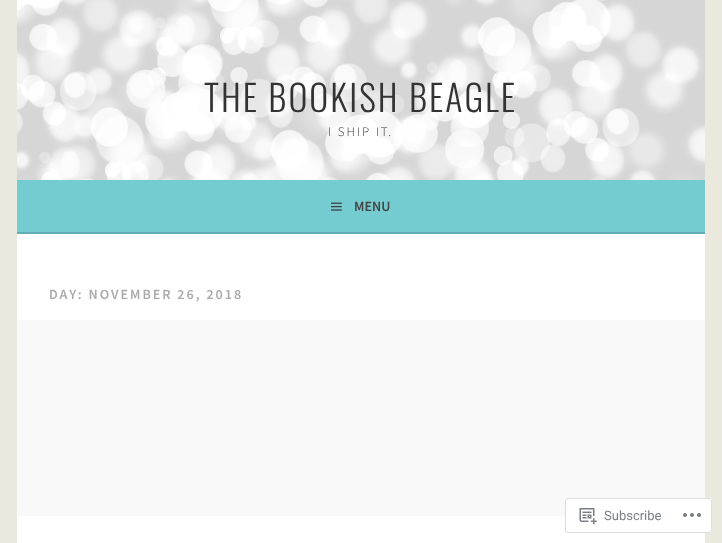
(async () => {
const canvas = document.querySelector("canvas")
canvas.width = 722
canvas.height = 543
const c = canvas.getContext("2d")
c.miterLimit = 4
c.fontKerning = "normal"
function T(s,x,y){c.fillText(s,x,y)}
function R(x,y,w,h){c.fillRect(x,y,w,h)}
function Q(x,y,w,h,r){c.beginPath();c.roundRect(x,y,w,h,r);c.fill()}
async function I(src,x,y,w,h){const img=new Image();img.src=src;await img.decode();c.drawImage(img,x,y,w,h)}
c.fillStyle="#ebe8de"
R(0,0,722,543)
await I("1.png",17,0,688,180)
c.letterSpacing="2px"
c.font="300 36px Oswald"
c.fillStyle="#333"
T("THE BOOKISH BEAGLE",204,112)
c.font="300 13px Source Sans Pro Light"
T("I SHIP IT.",328,136)
c.fillStyle="#74ccd1"
R(17,180,688,52)
c.fillStyle="#63adb2"
R(17,232,688,2)
await I("2.png",331,202,11,9)
c.letterSpacing="0px"
c.font="600 14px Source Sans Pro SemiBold"
c.fillStyle="#444"
T("MENU",354,211)
c.fillStyle="#fff"
R(17,234,688,309)
c.letterSpacing="2px"
c.fillStyle="#aaa"
T("DAY: NOVEMBER 26, 2018",49,299)
c.fillStyle="#f8f9f8"
R(17,320,688,196)
c.fillStyle="#fffffffa"
Q(565,498,147,35,3)
c.beginPath()
c.roundRect(565.5,498.5,146,34,2.5)
c.strokeStyle="#dcdcdefa"
c.stroke()
await I("3.png",579,508,18,17)
c.letterSpacing="0px"
c.font="13px Roboto"
c.fillStyle="#7b7f84"
T("Subscribe",604,520)
await I("4.png",683,513,18,4)
})()
